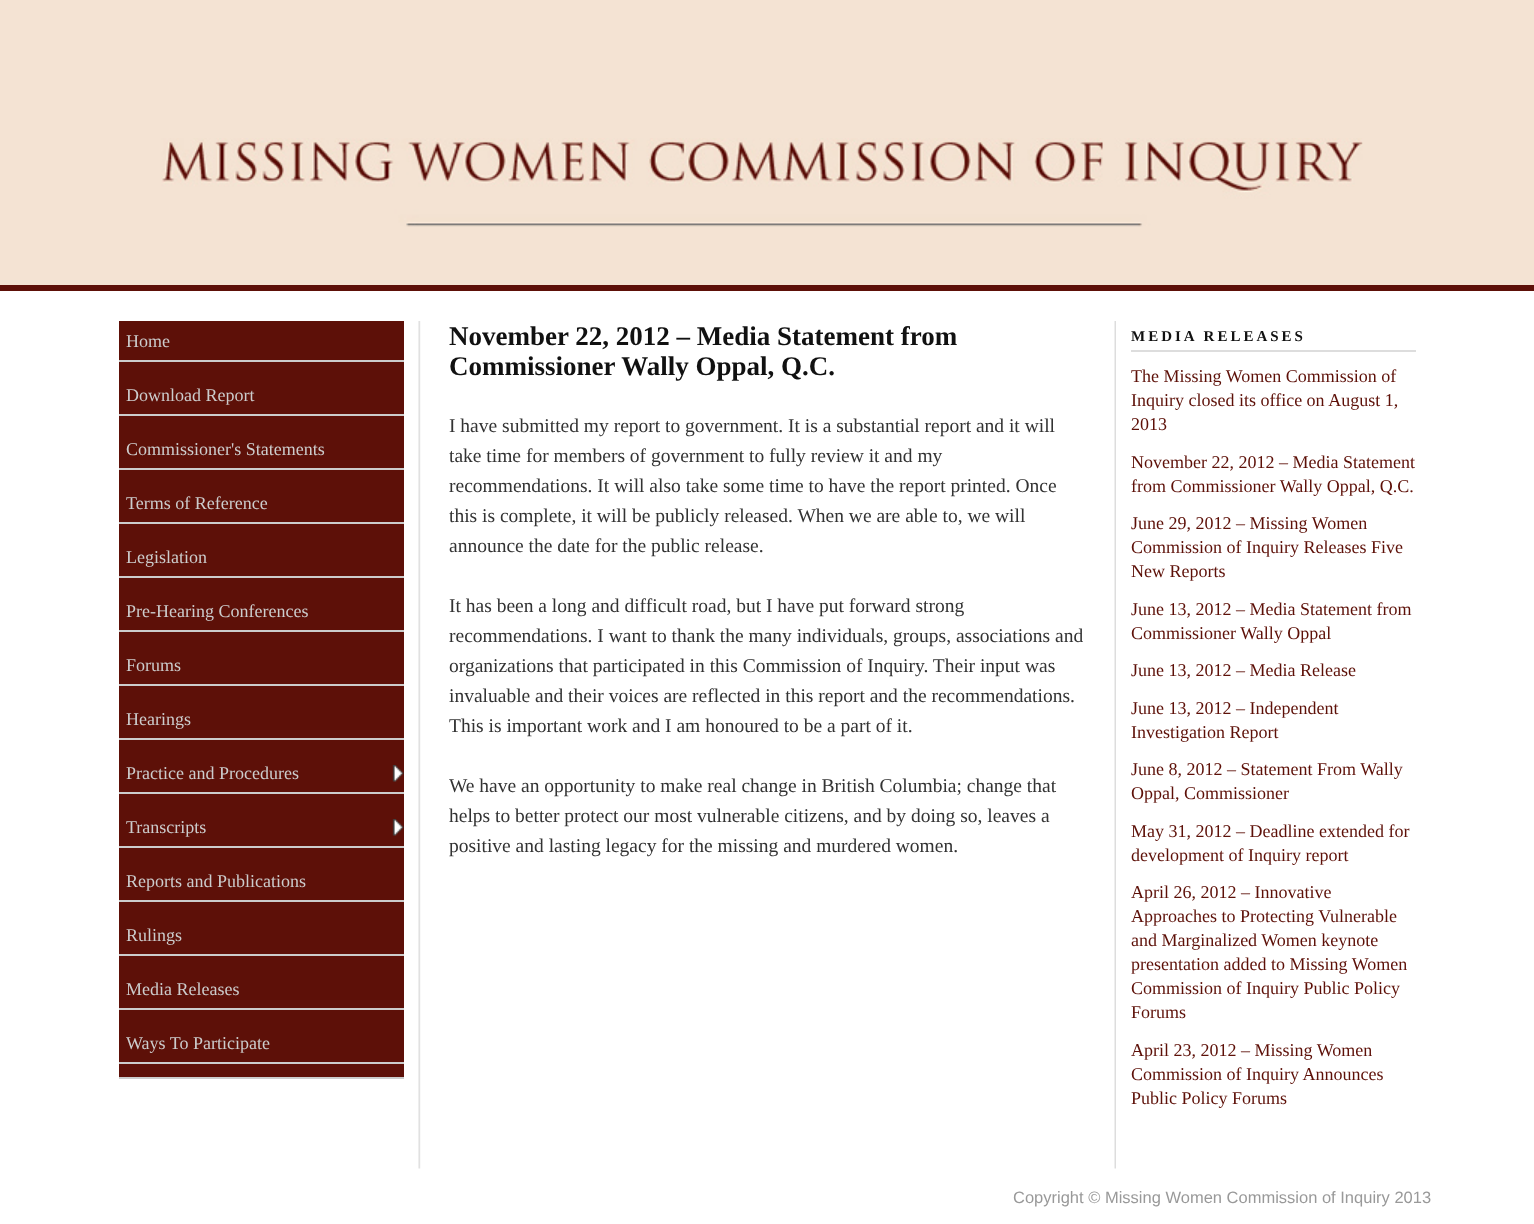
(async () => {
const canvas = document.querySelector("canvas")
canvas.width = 1534
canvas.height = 1224
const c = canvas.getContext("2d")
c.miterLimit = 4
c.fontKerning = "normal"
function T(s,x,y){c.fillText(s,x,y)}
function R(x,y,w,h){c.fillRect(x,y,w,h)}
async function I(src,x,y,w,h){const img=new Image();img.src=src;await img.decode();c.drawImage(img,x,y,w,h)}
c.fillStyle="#fff"
R(0,0,1534,1224)
c.fillStyle="#f4e3d3"
R(0,0,1534,285)
await I("1.png",161,138,1202,89)
c.fillStyle="#5d1008"
R(0,285,1534,6)
await I("2.png",418,321,698,848)
R(119,321,285,756)
c.fillStyle="#ccc"
R(119,1077,285,2)
R(119,360,285,2)
c.font="18px Liberation Serif"
T("Home",126,347)
R(119,414,285,2)
T("Download Report",126,401)
R(119,468,285,2)
T("Commissioner's Statements",126,455)
R(119,522,285,2)
T("Terms of Reference",126,509)
R(119,576,285,2)
T("Legislation",126,563)
R(119,630,285,2)
T("Pre-Hearing Conferences",126,617)
R(119,684,285,2)
T("Forums",126,671)
R(119,738,285,2)
T("Hearings",126,725)
await I("3.png",392,765,12,17)
R(119,792,285,2)
T("Practice and Procedures",126,779)
await I("3.png",392,819,12,17)
R(119,846,285,2)
T("Transcripts",126,833)
R(119,900,285,2)
T("Reports and Publications",126,887)
R(119,954,285,2)
T("Rulings",126,941)
R(119,1008,285,2)
T("Media Releases",126,995)
R(119,1062,285,2)
T("Ways To Participate",126,1049)
c.font="bold 27px Liberation Serif"
c.fillStyle="#111"
T("November 22, 2012 – Media Statement from",449,345)
T("Commissioner Wally Oppal, Q.C.",449,375)
c.font="19.5px Liberation Serif"
c.fillStyle="#333"
T("I have submitted my report to government. It is a substantial report and it will",449,432)
T("take time for members of government to fully review it and my",449,462)
T("recommendations. It will also take some time to have the report printed. Once",449,492)
T("this is complete, it will be publicly released. When we are able to, we will",449,522)
T("announce the date for the public release.",449,552)
T("It has been a long and difficult road, but I have put forward strong",449,612)
T("recommendations. I want to thank the many individuals, groups, associations and",449,642)
T("organizations that participated in this Commission of Inquiry. Their input was",449,672)
T("invaluable and their voices are reflected in this report and the recommendations.",449,702)
T("This is important work and I am honoured to be a part of it.",449,732)
T("We have an opportunity to make real change in British Columbia; change that",449,792)
T("helps to better protect our most vulnerable citizens, and by doing so, leaves a",449,822)
T("positive and lasting legacy for the missing and murdered women.",449,852)
c.fillStyle="#ddd"
R(1131,350,285,2)
c.letterSpacing="3px"
c.font="bold 15px Liberation Serif"
c.fillStyle="#111"
T("MEDIA RELEASES",1131,341)
c.letterSpacing="0px"
c.font="18px Liberation Serif"
c.fillStyle="#5d1008"
T("The Missing Women Commission of",1131,382)
T("Inquiry closed its office on August 1,",1131,406)
T("2013",1131,430)
T("November 22, 2012 – Media Statement",1131,468)
T("from Commissioner Wally Oppal, Q.C.",1131,492)
T("June 29, 2012 – Missing Women",1131,529)
T("Commission of Inquiry Releases Five",1131,553)
T("New Reports",1131,577)
T("June 13, 2012 – Media Statement from",1131,615)
T("Commissioner Wally Oppal",1131,639)
T("June 13, 2012 – Media Release",1131,676)
T("June 13, 2012 – Independent",1131,714)
T("Investigation Report",1131,738)
T("June 8, 2012 – Statement From Wally",1131,775)
T("Oppal, Commissioner",1131,799)
T("May 31, 2012 – Deadline extended for",1131,837)
T("development of Inquiry report",1131,861)
T("April 26, 2012 – Innovative",1131,898)
T("Approaches to Protecting Vulnerable",1131,922)
T("and Marginalized Women keynote",1131,946)
T("presentation added to Missing Women",1131,970)
T("Commission of Inquiry Public Policy",1131,994)
T("Forums",1131,1018)
T("April 23, 2012 – Missing Women",1131,1056)
T("Commission of Inquiry Announces",1131,1080)
T("Public Policy Forums",1131,1104)
c.font="16.5px Liberation Sans"
c.fillStyle="#999"
T("Copyright © Missing Women Commission of Inquiry 2013",1013,1203)
})()
